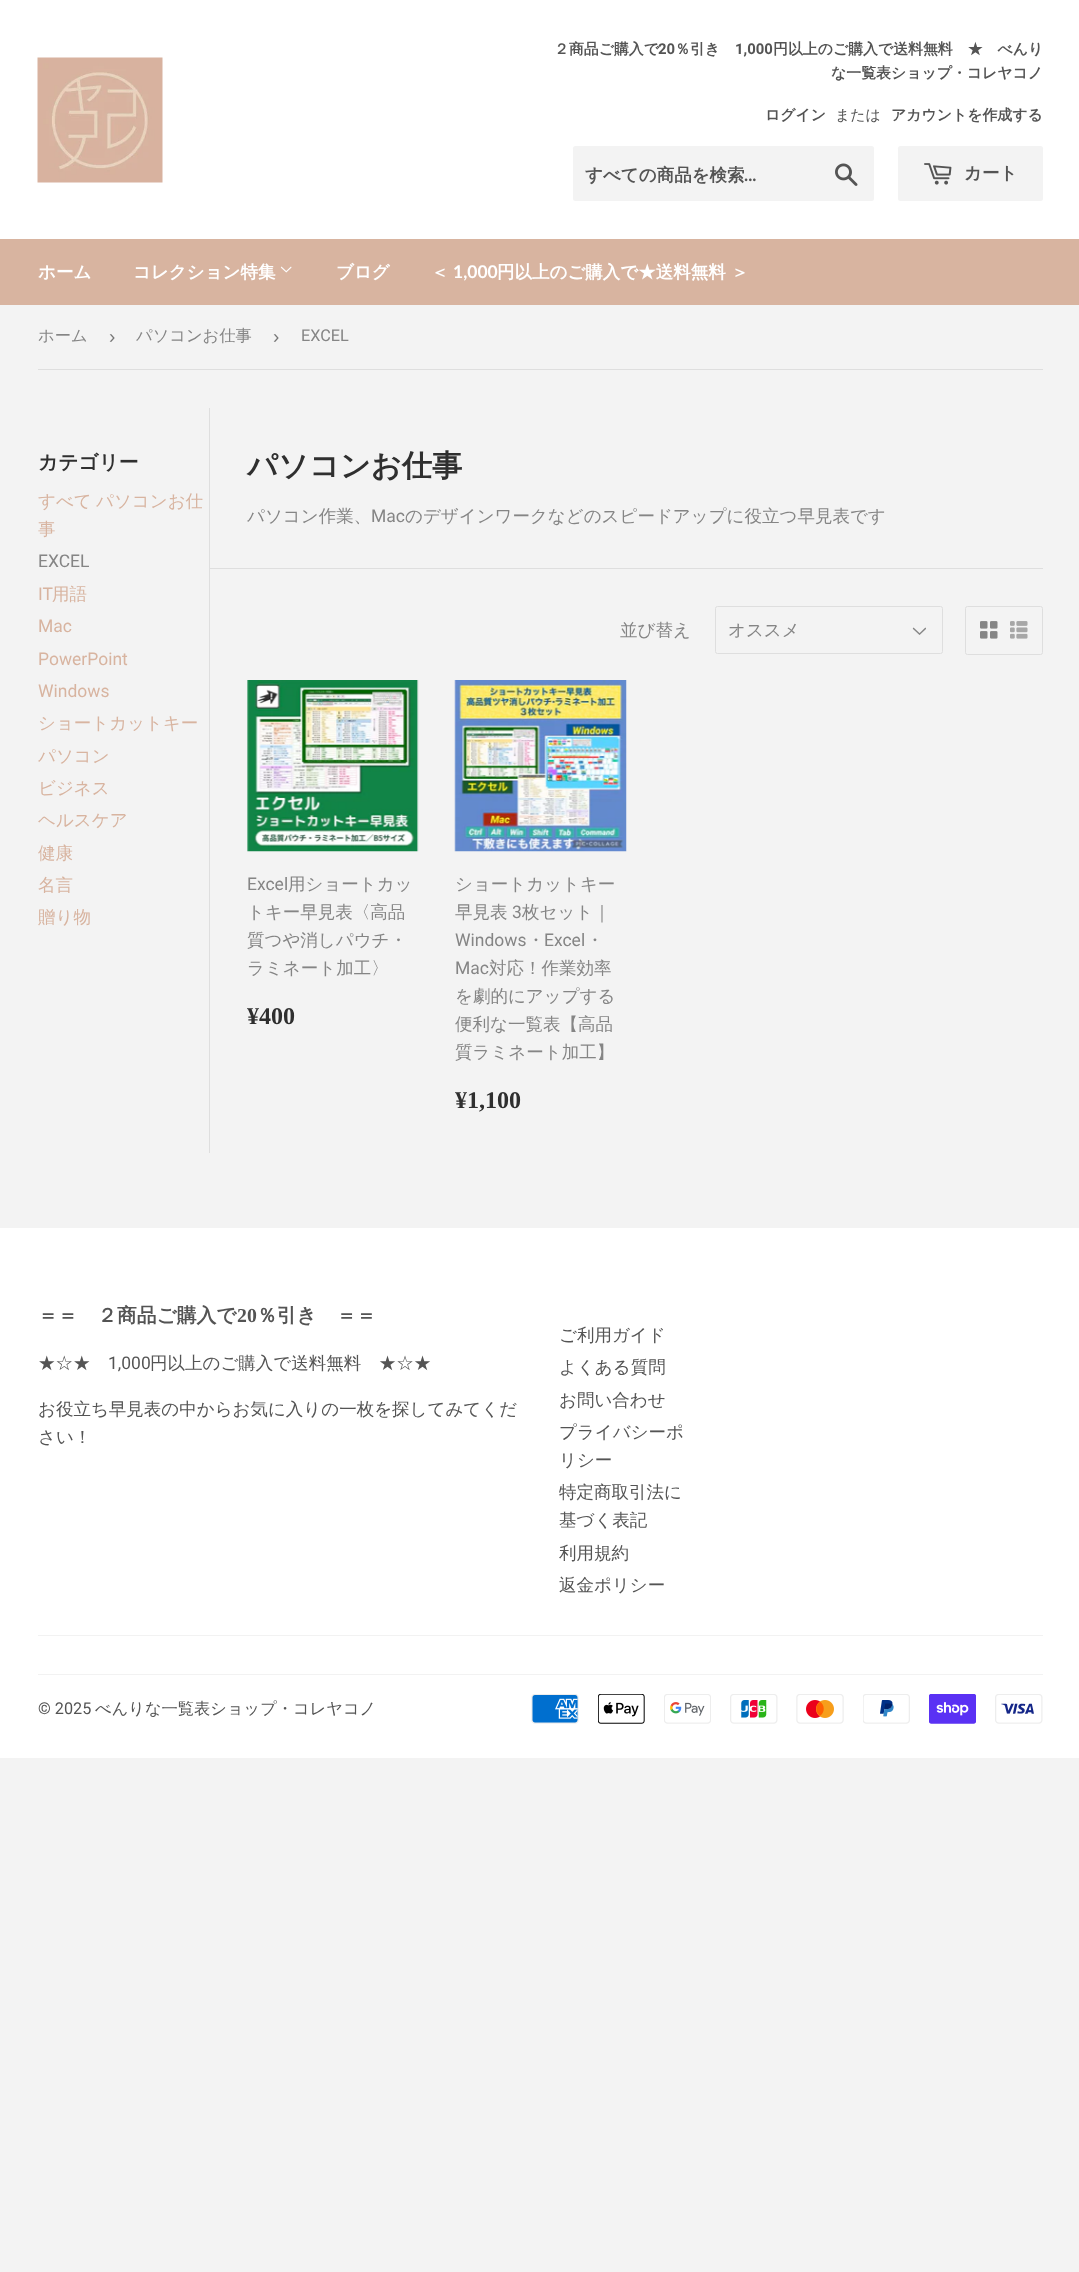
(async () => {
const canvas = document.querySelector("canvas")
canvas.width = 1079
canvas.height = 2272
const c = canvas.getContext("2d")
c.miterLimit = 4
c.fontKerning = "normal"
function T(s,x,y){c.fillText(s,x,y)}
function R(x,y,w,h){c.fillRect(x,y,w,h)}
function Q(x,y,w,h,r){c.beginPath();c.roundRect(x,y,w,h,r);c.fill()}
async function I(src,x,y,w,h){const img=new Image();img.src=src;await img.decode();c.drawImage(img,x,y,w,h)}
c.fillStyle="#f3f3f3"
R(0,0,1079,2272)
c.fillStyle="#fff"
R(0,0,1079,239)
await I("1.png",37,57,126,126)
c.font="bold 14.9px WenQuanYi Zen Hei"
c.fillStyle="#545454"
T("２商品ご購入で",554,54)
c.font="bold 14.9px Roboto"
T("20",658,54)
c.font="bold 14.9px WenQuanYi Zen Hei"
T("％引き",675,54)
c.font="bold 14.9px Roboto"
T("1,000",735,54)
c.font="bold 14.9px WenQuanYi Zen Hei"
T("円以上のご購入で送料無料　★　べんり",773,54)
T("な一覧表ショップ・コレヤコノ",831,78)
T("ログイン",765,120)
c.font="500 14.9px WenQuanYi Zen Hei"
T("または",835,120)
c.font="bold 14.9px WenQuanYi Zen Hei"
T("アカウントを作成する",891,120)
c.fillStyle="#f3f3f3"
Q(573,146,301,55,2.5)
c.font="bold 17.5px WenQuanYi Zen Hei"
c.fillStyle="#545454"
T("すべての商品を検索",585,181)
c.font="bold 17.5px Lato"
T("...",744,181)
await I("2.png",835,163,23,23)
c.fillStyle="#f3f3f3"
Q(898,146,145,55,2.5)
await I("3.png",924,163,28,22)
c.font="bold 17.5px WenQuanYi Zen Hei"
c.fillStyle="#545454"
T("カート",964,179)
c.fillStyle="#d8b4a0"
R(0,239,1079,66)
c.fillStyle="#fff"
T("ホーム",38,278)
T("コレクション特集",133,278)
await I("4.png",280,266,12,7)
T("ブログ",336,278)
T("＜",431,278)
c.font="bold 17.5px Lato"
T("1,000",453,278)
c.font="bold 17.5px WenQuanYi Zen Hei"
T("円以上のご購入で★送料無料 ＞",497,278)
c.fillStyle="#dedede"
R(38,369,1005,1)
c.font="500 16.25px WenQuanYi Zen Hei"
c.fillStyle="#858585"
T("ホーム",38,341)
c.font="19px Liberation Sans"
c.fillStyle="#767676"
T("›",109,343)
c.font="500 16.25px WenQuanYi Zen Hei"
c.fillStyle="#858585"
T("パソコンお仕事",136,341)
c.font="19px Liberation Sans"
c.fillStyle="#767676"
T("›",273,343)
c.font="16.25px Roboto"
c.fillStyle="#858585"
T("EXCEL",301,341)
c.font="bold 19.75px WenQuanYi Zen Hei"
c.fillStyle="#2f2f2f"
T("カテゴリー",38,469)
c.font="500 17.5px WenQuanYi Zen Hei"
c.fillStyle="#d8b4a0"
T("すべて",38,507)
T("パソコンお仕",96,507)
T("事",38,535)
c.font="17.5px Roboto"
c.fillStyle="#858585"
T("EXCEL",38,567)
c.fillStyle="#d8b4a0"
T("IT",38,600)
c.font="500 17.5px WenQuanYi Zen Hei"
T("用語",52,600)
c.font="17.5px Roboto"
T("Mac",38,632)
T("PowerPoint",38,665)
T("Windows",38,697)
c.font="500 17.5px WenQuanYi Zen Hei"
T("ショートカットキー",38,729)
T("パソコン",38,762)
T("ビジネス",38,794)
T("ヘルスケア",38,826)
T("健康",38,859)
T("名言",38,891)
T("贈り物",38,923)
c.fillStyle="#dedede"
R(209,408,1,745)
c.font="bold 30.25px WenQuanYi Zen Hei"
c.fillStyle="#2f2f2f"
T("パソコンお仕事",247,476)
c.font="500 17.5px WenQuanYi Zen Hei"
c.fillStyle="#858585"
T("パソコン作業、",247,522)
c.font="17.5px Roboto"
T("Mac",371,522)
c.font="500 17.5px WenQuanYi Zen Hei"
T("のデザインワークなどのスピードアップに役立つ早見表です",405,522)
c.fillStyle="#dedede"
R(210,568,833,1)
c.fillStyle="#858585"
T("並び替え",620,636)
await I("5.png",912,627,14,8)
c.beginPath()
c.roundRect(715.5,606.5,227,47,2)
c.strokeStyle="#dedede"
c.stroke()
T("オススメ",728,636)
c.beginPath()
c.roundRect(965.5,606.5,77,48,2)
c.stroke()
await I("6.png",980,621,18,18)
await I("7.png",1010,621,18,18)
await I("8.png",247,680,172,172)
c.font="17.5px Roboto"
T("Excel",247,890)
c.font="500 17.5px WenQuanYi Zen Hei"
T("用ショートカッ",288,890)
T("トキー早見表〈高品",247,918)
T("質つや消しパウチ・",247,946)
T("ラミネート加工〉",247,974)
c.font="bold 24px Liberation Serif"
c.fillStyle="#2f2f2f"
T("¥400",247,1024)
await I("9.png",454,680,173,172)
c.font="500 17.5px WenQuanYi Zen Hei"
c.fillStyle="#858585"
T("ショートカットキー",455,890)
T("早見表",455,918)
c.font="17.5px Roboto"
T("3",512,918)
c.font="500 17.5px WenQuanYi Zen Hei"
T("枚セット｜",522,918)
c.font="17.5px Roboto"
T("Windows",455,946)
c.font="500 17.5px WenQuanYi Zen Hei"
T("・",527,946)
c.font="17.5px Roboto"
T("Excel",544,946)
c.font="500 17.5px WenQuanYi Zen Hei"
T("・",586,946)
c.font="17.5px Roboto"
T("Mac",455,974)
c.font="500 17.5px WenQuanYi Zen Hei"
T("対応！作業効率",489,974)
T("を劇的にアップする",455,1002)
T("便利な一覧表【高品",455,1030)
T("質ラミネート加工】",455,1058)
c.font="bold 24px Liberation Serif"
c.fillStyle="#2f2f2f"
T("¥1,100",455,1108)
c.fillStyle="#fff"
R(0,1228,1079,530)
c.font="bold 19.75px WenQuanYi Zen Hei"
c.fillStyle="#545454"
T("＝＝　２商品ご購入で",38,1322)
c.font="bold 19.75px Liberation Serif"
T("20",237,1322)
c.font="bold 19.75px WenQuanYi Zen Hei"
T("％引き　＝＝",257,1322)
c.font="500 17.5px WenQuanYi Zen Hei"
T("★☆★",38,1369)
c.font="17.5px Roboto"
T("1,000",108,1369)
c.font="500 17.5px WenQuanYi Zen Hei"
T("円以上のご購入で送料無料　★☆★",150,1369)
T("お役立ち早見表の中からお気に入りの一枚を探してみてくだ",38,1415)
T("さい！",38,1443)
T("ご利用ガイド",559,1341)
T("よくある質問",559,1373)
T("お問い合わせ",559,1406)
T("プライバシーポ",559,1438)
T("リシー",559,1466)
T("特定商取引法に",559,1498)
T("基づく表記",559,1526)
T("利用規約",559,1559)
T("返金ポリシー",559,1591)
c.fillStyle="#f2f2f2"
R(38,1635,1005,1)
R(38,1674,1005,1)
c.font="16.25px Roboto"
c.fillStyle="#545454"
T("© 2025",38,1714)
c.font="500 16.25px WenQuanYi Zen Hei"
T("べんりな一覧表ショップ・コレヤコノ",95,1714)
await I("10.png",531,1694,48,30)
await I("11.png",598,1694,47,30)
await I("12.png",664,1694,47,30)
await I("13.png",730,1694,48,30)
await I("14.png",796,1694,48,30)
await I("15.png",863,1694,47,30)
await I("16.png",929,1694,47,30)
await I("17.png",995,1694,48,30)
})()
